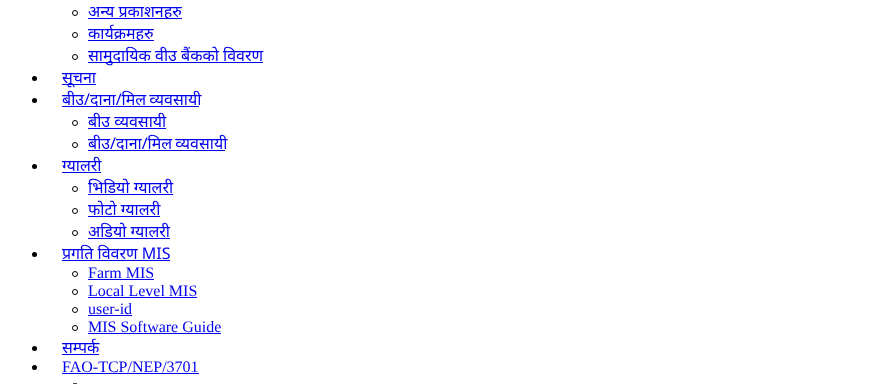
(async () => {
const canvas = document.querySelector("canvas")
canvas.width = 880
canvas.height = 384
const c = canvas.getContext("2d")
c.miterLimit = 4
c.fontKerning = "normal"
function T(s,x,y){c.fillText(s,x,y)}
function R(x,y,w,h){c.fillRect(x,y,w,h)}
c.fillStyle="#fff"
R(0,0,880,384)
c.beginPath()
c.arc(75,13,2.5,0,7)
c.strokeStyle="#000"
c.stroke()
c.fillStyle="#00e"
R(88,18,94,1)
c.font="16px Noto Sans"
T("अन्य प्रकाशनहरु",88,17)
c.beginPath()
c.arc(75,35,2.5,0,7)
c.stroke()
R(88,40,66,1)
T("कार्यक्रमहरु",88,39)
c.beginPath()
c.arc(75,57,2.5,0,7)
c.stroke()
R(88,62,175,1)
T("सामुदायिक वीउ बैंकको विवरण",88,61)
c.fillStyle="#000"
c.beginPath()
c.arc(34.5,78.5,2.5,0,7)
c.fill()
c.fillStyle="#00e"
R(62,84,34,1)
T("सूचना",62,83)
c.fillStyle="#000"
c.beginPath()
c.arc(34.5,100.5,2.5,0,7)
c.fill()
c.wordSpacing="-1px"
c.fillStyle="#00e"
T("बीउ/दाना/मिल व्यवसायी",62,105)
R(62,106,137,1)
c.beginPath()
c.arc(75,123,2.5,0,7)
c.stroke()
c.wordSpacing="0px"
T("बीउ व्यवसायी",88,127)
R(88,128,78,1)
c.beginPath()
c.arc(75,145,2.5,0,7)
c.stroke()
c.wordSpacing="-1px"
T("बीउ/दाना/मिल व्यवसायी",88,149)
R(88,150,137,1)
c.fillStyle="#000"
c.beginPath()
c.arc(34.5,166.5,2.5,0,7)
c.fill()
c.wordSpacing="0px"
c.fillStyle="#00e"
T("ग्यालरी",62,171)
R(62,172,39,1)
c.beginPath()
c.arc(75,189,2.5,0,7)
c.stroke()
T("भिडियो ग्यालरी",88,193)
R(88,194,85,1)
c.beginPath()
c.arc(75,211,2.5,0,7)
c.stroke()
T("फोटो ग्यालरी",88,215)
R(88,216,72,1)
c.beginPath()
c.arc(75,233,2.5,0,7)
c.stroke()
T("अडियो ग्यालरी",88,237)
R(88,238,82,1)
c.fillStyle="#000"
c.beginPath()
c.arc(34.5,254.5,2.5,0,7)
c.fill()
c.fillStyle="#00e"
T("प्रगति विवरण MIS",62,259)
R(62,260,108,1)
c.beginPath()
c.arc(75,274,2.5,0,7)
c.stroke()
c.font="16px Liberation Serif"
T("Farm MIS",88,278)
R(88,279,66,1)
c.beginPath()
c.arc(75,292,2.5,0,7)
c.stroke()
T("Local Level MIS",88,296)
R(88,297,109,1)
c.beginPath()
c.arc(75,310,2.5,0,7)
c.stroke()
T("user-id",88,314)
R(88,315,44,1)
c.beginPath()
c.arc(75,328,2.5,0,7)
c.stroke()
T("MIS Software Guide",88,332)
R(88,333,133,1)
c.fillStyle="#000"
c.beginPath()
c.arc(34.5,348.5,2.5,0,7)
c.fill()
c.font="16px Noto Sans"
c.fillStyle="#00e"
T("सम्पर्क",62,353)
R(62,354,37,1)
c.fillStyle="#000"
c.beginPath()
c.arc(34.5,367.5,2.5,0,7)
c.fill()
c.font="16px Liberation Serif"
c.fillStyle="#00e"
T("FAO-TCP/NEP/3701",62,372)
R(62,373,137,1)
c.beginPath()
c.roundRect(72.5,383.5,5,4,2.5)
c.stroke()
})()
